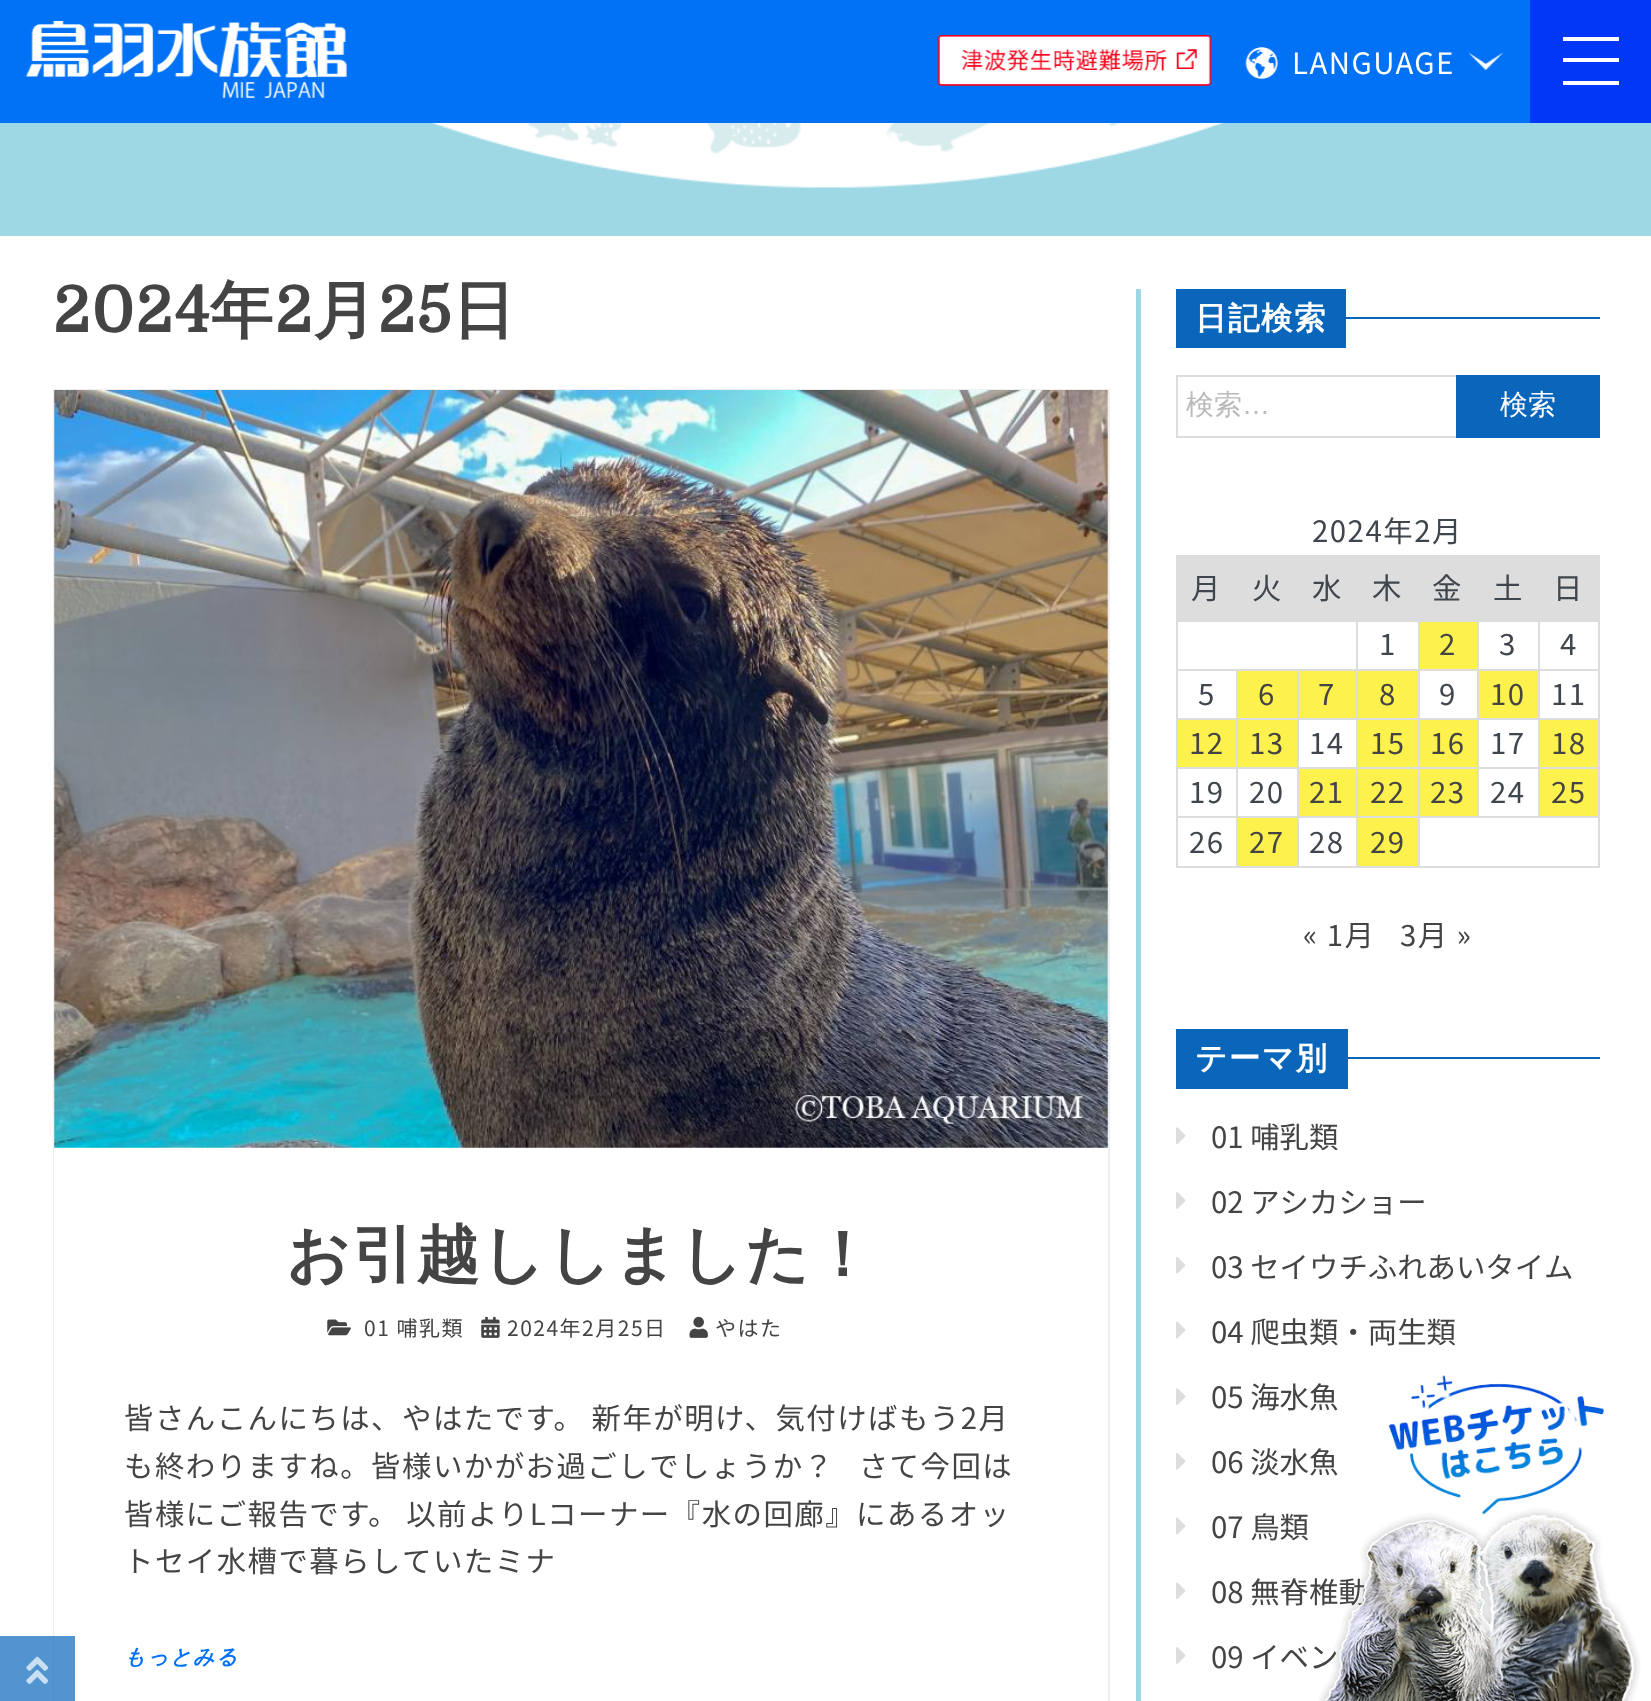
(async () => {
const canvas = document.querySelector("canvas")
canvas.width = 1651
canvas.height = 1701
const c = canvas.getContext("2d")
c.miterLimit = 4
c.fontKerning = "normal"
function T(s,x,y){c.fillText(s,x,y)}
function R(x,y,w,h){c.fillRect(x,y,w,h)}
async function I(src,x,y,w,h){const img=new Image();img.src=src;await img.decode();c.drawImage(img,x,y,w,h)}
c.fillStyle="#9ed8e5"
R(0,0,1651,1701)
c.fillStyle="#0171f6"
R(0,0,1530,123)
await I("1.png",25,21,322,77)
await I("2.png",937,35,275,51)
await I("3.png",1245,47,33,32)
c.letterSpacing="1.5px"
c.font="29.4px Noto Sans JP"
c.fillStyle="#fff"
T("LANGUAGE",1292,74)
await I("4.png",1468,52,36,18)
c.fillStyle="#0237f7"
R(1530,0,121,123)
c.fillStyle="#fff"
R(1563,37,56,4)
R(1563,58,56,4)
R(1563,81,56,4)
R(0,236,1651,1465)
c.letterSpacing="0px"
c.fillStyle="#444"
T("05 海水魚",1211,1408)
T("06 淡水魚",1211,1473)
T("08 無脊椎動",1211,1603)
T("09 イベン",1211,1668)
await I("5.png",1318,1375,323,326)
await I("6.png",430,123,795,65)
c.strokeStyle="#efefef"
c.lineWidth=2
c.strokeRect(54,390,1055,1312)
c.fillStyle="#fff"
R(54,1148,1,553)
c.fillStyle="#0966bab3"
R(0,1636,75,65)
await I("7.png",26,1656,23,28)
c.letterSpacing="1.5px"
c.font="bold 63px Domine"
c.fillStyle="#444"
T("2024",53,332)
c.font="bold 63px WenQuanYi Zen Hei"
T("年",210,332)
c.font="bold 63px Domine"
T("2",275,332)
c.font="bold 63px WenQuanYi Zen Hei"
T("月",313,332)
c.font="bold 63px Domine"
T("25",378,332)
c.font="bold 63px WenQuanYi Zen Hei"
T("日",452,332)
await I("8.png",54,390,1054,758)
T("お引越ししました！",286,1276)
await I("9.png",327,1319,24,17)
c.font="21px Noto Sans JP"
T("01 哺乳類",364,1336)
await I("10.png",481,1316,19,22)
T("2024年2月25日",507,1336)
await I("11.png",689,1316,19,22)
T("やはた",715,1336)
c.wordSpacing="-1px"
c.font="29.4px Noto Sans JP"
T("皆さんこんにちは、やはたです。 新年が明け、気付けばもう2月",124,1429)
c.wordSpacing="0px"
T("も終わりますね。皆様いかがお過ごしでしょうか？   さて今回は",124,1477)
c.wordSpacing="-1px"
T("皆様にご報告です。 以前よりLコーナー『水の回廊』にあるオッ",124,1525)
c.wordSpacing="0px"
T("トセイ水槽で暮らしていたミナ",124,1572)
c.font="italic bold 21px WenQuanYi Zen Hei"
c.fillStyle="#0171f6"
T("もっとみる",124,1664)
c.fillStyle="#9ed8e5"
R(1136,289,5,1412)
c.fillStyle="#0966ba"
R(1176,289,170,59)
c.font="bold 31.5px WenQuanYi Zen Hei"
c.fillStyle="#fff"
T("日記検索",1195,329)
c.fillStyle="#0966ba"
R(1346,317,254,2)
c.strokeStyle="#ddd"
c.strokeRect(1177,376,422,61)
c.letterSpacing="0px"
c.font="500 28px WenQuanYi Zen Hei"
c.fillStyle="#bababa"
T("検索",1186,414)
c.font="28px Liberation Sans"
T("…",1242,414)
c.fillStyle="#0966ba"
R(1456,375,144,63)
c.font="500 28px WenQuanYi Zen Hei"
c.fillStyle="#fff"
T("検索",1500,414)
c.letterSpacing="1.5px"
c.font="29.4px Noto Sans JP"
c.fillStyle="#40464d"
T("2024年2月",1312,542)
c.fillStyle="#ddd"
R(1176,555,424,65)
c.fillStyle="#40464d"
T("月",1191,599)
T("火",1252,599)
T("水",1312,599)
T("木",1372,599)
T("金",1432,599)
T("土",1493,599)
T("日",1553,599)
c.fillStyle="#ddd"
R(1538,620,62,2)
R(1538,669,62,2)
R(1538,718,62,2)
R(1538,767,62,2)
R(1418,816,182,2)
R(1538,767,2,50)
R(1477,767,63,2)
R(1538,718,2,50)
R(1477,718,63,2)
R(1538,669,2,50)
R(1477,669,63,2)
R(1538,620,2,50)
R(1477,620,63,2)
R(1477,767,2,50)
R(1418,767,61,2)
R(1477,718,2,50)
R(1418,718,61,2)
R(1477,669,2,50)
R(1418,669,61,2)
R(1477,620,2,50)
R(1418,620,61,2)
R(1598,816,2,52)
R(1418,866,182,2)
R(1418,816,2,52)
R(1356,816,63,2)
R(1418,767,2,50)
R(1356,767,63,2)
R(1418,718,2,50)
R(1356,718,63,2)
R(1418,669,2,50)
R(1356,669,63,2)
R(1418,620,2,50)
R(1356,620,63,2)
R(1356,866,63,2)
R(1356,816,2,52)
R(1297,816,61,2)
R(1356,767,2,50)
R(1297,767,61,2)
R(1356,718,2,50)
R(1297,718,61,2)
R(1356,669,2,50)
R(1297,669,61,2)
R(1356,620,2,50)
R(1176,620,182,2)
R(1297,866,61,2)
R(1297,816,2,52)
R(1236,816,63,2)
R(1297,767,2,50)
R(1236,767,63,2)
R(1297,718,2,50)
R(1236,718,63,2)
R(1297,669,2,50)
R(1236,669,63,2)
R(1236,866,63,2)
R(1236,816,2,52)
R(1176,816,61,2)
R(1236,767,2,50)
R(1176,767,61,2)
R(1236,718,2,50)
R(1176,718,61,2)
R(1236,669,2,50)
R(1176,669,61,2)
R(1176,866,61,2)
R(1176,816,2,52)
R(1176,767,2,50)
R(1176,718,2,50)
R(1176,669,2,50)
R(1176,620,2,50)
c.fillStyle="#40464d"
T("1",1379,655)
c.fillStyle="#fdf14d"
R(1420,622,57,47)
c.fillStyle="#444"
T("2",1439,655)
c.fillStyle="#40464d"
T("3",1499,655)
c.fillStyle="#ddd"
R(1598,767,2,50)
R(1598,718,2,50)
R(1598,669,2,50)
R(1598,620,2,50)
c.fillStyle="#40464d"
T("4",1560,655)
T("5",1198,705)
c.fillStyle="#fdf14d"
R(1238,671,59,47)
c.fillStyle="#444"
T("6",1258,705)
c.fillStyle="#fdf14d"
R(1299,671,57,47)
c.fillStyle="#444"
T("7",1318,705)
c.fillStyle="#fdf14d"
R(1358,671,60,47)
c.fillStyle="#444"
T("8",1379,705)
c.fillStyle="#40464d"
T("9",1439,705)
c.fillStyle="#fdf14d"
R(1479,671,59,47)
c.fillStyle="#444"
T("10",1490,705)
c.fillStyle="#40464d"
T("11",1551,705)
c.fillStyle="#fdf14d"
R(1178,720,58,47)
c.fillStyle="#444"
T("12",1189,754)
c.fillStyle="#fdf14d"
R(1238,720,59,47)
c.fillStyle="#444"
T("13",1249,754)
c.fillStyle="#40464d"
T("14",1309,754)
c.fillStyle="#fdf14d"
R(1358,720,60,47)
c.fillStyle="#444"
T("15",1370,754)
c.fillStyle="#fdf14d"
R(1420,720,57,47)
c.fillStyle="#444"
T("16",1430,754)
c.fillStyle="#40464d"
T("17",1490,754)
c.fillStyle="#fdf14d"
R(1540,720,58,47)
c.fillStyle="#444"
T("18",1551,754)
c.fillStyle="#40464d"
T("19",1189,803)
T("20",1249,803)
c.fillStyle="#fdf14d"
R(1299,769,57,47)
c.fillStyle="#444"
T("21",1309,803)
c.fillStyle="#fdf14d"
R(1358,769,60,47)
c.fillStyle="#444"
T("22",1370,803)
c.fillStyle="#fdf14d"
R(1420,769,57,47)
c.fillStyle="#444"
T("23",1430,803)
c.fillStyle="#40464d"
T("24",1490,803)
c.fillStyle="#fdf14d"
R(1540,769,58,47)
c.fillStyle="#444"
T("25",1551,803)
c.fillStyle="#40464d"
T("26",1189,853)
c.fillStyle="#fdf14d"
R(1238,818,59,48)
c.fillStyle="#444"
T("27",1249,853)
c.fillStyle="#40464d"
T("28",1309,853)
c.fillStyle="#fdf14d"
R(1358,818,60,48)
c.fillStyle="#444"
T("29",1370,853)
T("« 1月",1303,946)
T("3月 »",1400,946)
c.fillStyle="#0966ba"
R(1176,1029,172,60)
c.font="bold 31.5px WenQuanYi Zen Hei"
c.fillStyle="#fff"
T("テーマ別",1195,1069)
c.fillStyle="#0966ba"
R(1348,1057,252,2)
await I("12.png",1176,1127,10,17)
c.letterSpacing="0px"
c.font="29.4px Noto Sans JP"
c.fillStyle="#444"
T("01 哺乳類",1211,1148)
await I("13.png",1176,1192,10,17)
T("02 アシカショー",1211,1213)
await I("14.png",1176,1257,10,17)
T("03 セイウチふれあいタイム",1211,1278)
await I("15.png",1176,1321,10,18)
T("04 爬虫類・両生類",1211,1343)
await I("13.png",1176,1388,10,17)
await I("14.png",1176,1453,10,17)
await I("15.png",1176,1517,10,18)
T("07 鳥類",1211,1538)
await I("12.png",1176,1582,10,17)
await I("13.png",1176,1647,10,17)
})()
